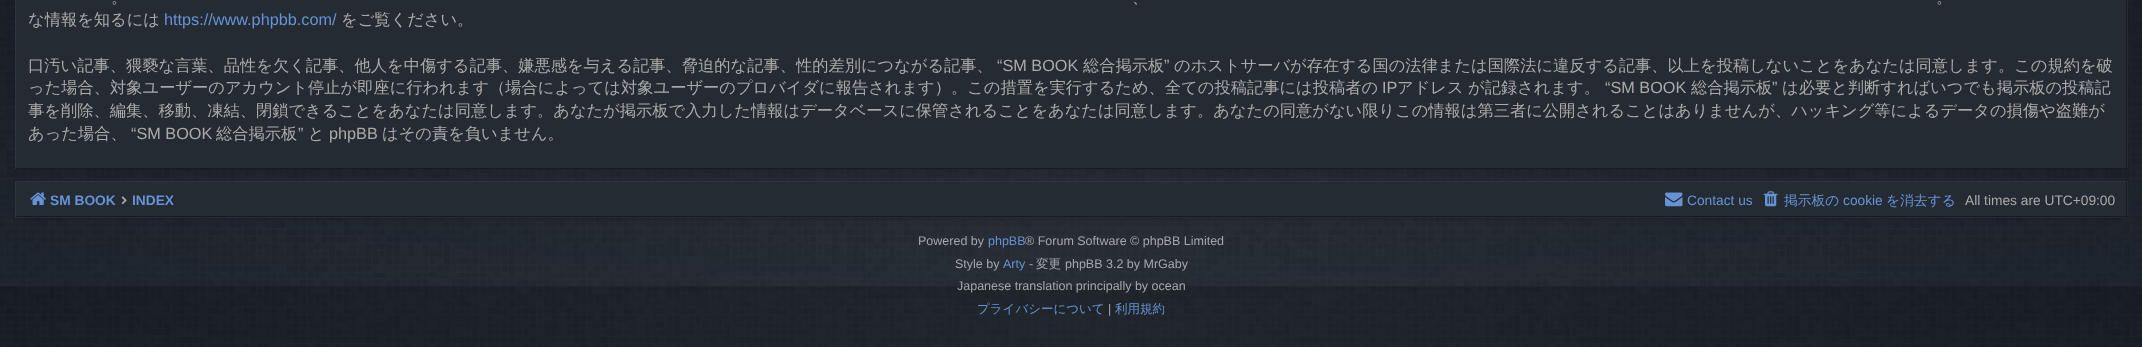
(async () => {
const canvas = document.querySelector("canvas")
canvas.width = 2142
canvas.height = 347
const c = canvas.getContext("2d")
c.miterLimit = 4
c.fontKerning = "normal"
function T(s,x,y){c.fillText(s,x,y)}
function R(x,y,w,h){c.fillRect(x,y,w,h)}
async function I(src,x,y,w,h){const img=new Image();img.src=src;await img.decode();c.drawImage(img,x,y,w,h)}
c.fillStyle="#1c232e"
R(0,0,2142,347)
await I("1.png",0,0,2142,347)
c.fillStyle="#00000033"
c.filter="blur(3px)"
c.beginPath()
c.rect(21,-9,2100,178)
c.fill()
c.filter="none"
c.fillStyle="#252b33"
R(16,0,2112,168)
c.fillStyle="#181c21"
R(2126,0,1,169)
R(15,168,2113,1)
c.fillStyle="#2e353f"
R(15,0,1,169)
c.font="500 16.25px WenQuanYi Zen Hei"
c.fillStyle="#aaa"
T("。",111,3)
T("、",1132,3)
T("。",1936,3)
T("な情報を知るには",28,25)
c.font="16.25px Liberation Sans"
c.fillStyle="#6593d6"
T("https://www.phpbb.com/",164,25)
c.font="500 16.25px WenQuanYi Zen Hei"
c.fillStyle="#aaa"
T("をご覧ください。",341,25)
T("口汚い記事、猥褻な言葉、品性を欠く記事、他人を中傷する記事、嫌悪感を与える記事、脅迫的な記事、性的差別につながる記事、",28,71)
c.font="16.25px Liberation Sans"
T("“SM BOOK",997,71)
c.font="500 16.25px WenQuanYi Zen Hei"
T("総合掲示板",1083,71)
c.font="16.25px Liberation Sans"
T("”",1164,71)
c.font="500 16.25px WenQuanYi Zen Hei"
T("のホストサーバが存在する国の法律または国際法に違反する記事、以上を投稿しないことをあなたは同意します。この規約を破",1174,71)
T("った場合、対象ユーザーのアカウント停止が即座に行われます（場合によっては対象ユーザーのプロバイダに報告されます）。この措置を実行するため、全ての投稿記事には投稿者の",28,93)
c.font="16.25px Liberation Sans"
T("IP",1382,93)
c.font="500 16.25px WenQuanYi Zen Hei"
T("アドレス",1397,93)
T("が記録されます。",1468,93)
c.font="16.25px Liberation Sans"
T("“SM BOOK",1605,93)
c.font="500 16.25px WenQuanYi Zen Hei"
T("総合掲示板",1691,93)
c.font="16.25px Liberation Sans"
T("”",1772,93)
c.font="500 16.25px WenQuanYi Zen Hei"
T("は必要と判断すればいつでも掲示板の投稿記",1782,93)
T("事を削除、編集、移動、凍結、閉鎖できることをあなたは同意します。あなたが掲示板で入力した情報はデータベースに保管されることをあなたは同意します。あなたの同意がない限りこの情報は第三者に公開されることはありませんが、ハッキング等によるデータの損傷や盗難が",28,116)
T("あった場合、",28,139)
c.font="16.25px Liberation Sans"
T("“SM BOOK",131,139)
c.font="500 16.25px WenQuanYi Zen Hei"
T("総合掲示板",216,139)
c.font="16.25px Liberation Sans"
T("”",298,139)
c.font="500 16.25px WenQuanYi Zen Hei"
T("と",308,139)
c.font="16.25px Liberation Sans"
T("phpBB",329,139)
c.font="500 16.25px WenQuanYi Zen Hei"
T("はその責を負いません。",382,139)
c.fillStyle="#00000033"
c.filter="blur(3px)"
c.beginPath()
c.rect(21,194,2100,24)
c.fill()
c.filter="none"
c.fillStyle="#252b33"
R(16,182,2112,36)
c.fillStyle="#2e353f"
R(15,181,2113,1)
c.fillStyle="#181c21"
R(2126,181,1,37)
R(15,216,2113,1)
c.fillStyle="#2e353f"
R(15,181,1,37)
await I("2.png",30,192,16,13)
c.font="bold 13.75px Liberation Sans"
c.fillStyle="#6593d6"
T("SM BOOK",50,205)
await I("3.png",121,196,6,9)
c.save()
c.beginPath()
c.rect(133,186,41,28)
c.clip()
T("INDEX",132,205)
c.restore()
await I("4.png",1665,192,18,15)
c.font="13.75px Liberation Sans"
T("Contact us",1687,205)
await I("5.png",1763,191,15,16)
c.font="500 13.75px WenQuanYi Zen Hei"
T("掲示板の",1784,205)
c.font="13.75px Liberation Sans"
T("cookie",1843,205)
c.font="500 13.75px WenQuanYi Zen Hei"
T("を消去する",1886,205)
c.font="13.75px Liberation Sans"
c.fillStyle="#aaa"
T("All times are UTC+09:00",1965,205)
c.font="12.5px Liberation Sans"
c.fillStyle="#a4a7ab"
T("Powered by",918,245)
c.fillStyle="#6593d6"
T("phpBB",988,245)
c.fillStyle="#a4a7ab"
T("® Forum Software © phpBB Limited",1025,245)
T("Style by",955,268)
c.fillStyle="#6593d6"
T("Arty",1003,268)
c.fillStyle="#a4a7ab"
T("-",1029,268)
c.font="500 12.5px WenQuanYi Zen Hei"
T("変更",1036,268)
c.font="12.5px Liberation Sans"
T("phpBB 3.2 by MrGaby",1065,268)
T("Japanese translation principally by ocean",957,290)
c.font="500 12.5px WenQuanYi Zen Hei"
c.fillStyle="#6593d6"
T("プライバシーについて",977,313)
c.font="12.5px Liberation Sans"
c.fillStyle="#a4a7ab"
T("|",1108,313)
c.font="500 12.5px WenQuanYi Zen Hei"
c.fillStyle="#6593d6"
T("利用規約",1115,313)
})()
